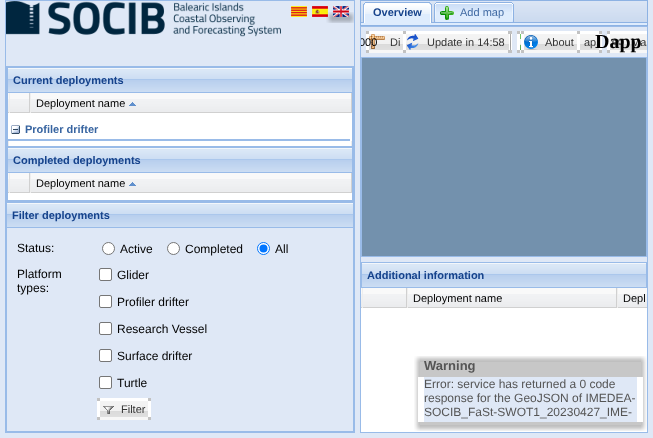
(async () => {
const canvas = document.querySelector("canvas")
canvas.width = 653
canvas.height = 438
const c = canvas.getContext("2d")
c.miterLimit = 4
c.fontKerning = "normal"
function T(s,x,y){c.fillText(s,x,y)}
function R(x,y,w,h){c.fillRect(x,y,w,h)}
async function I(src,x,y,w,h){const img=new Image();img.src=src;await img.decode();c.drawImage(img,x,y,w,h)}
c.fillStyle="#dfe8f6"
R(0,0,653,438)
c.strokeStyle="#99bbe8"
c.strokeRect(5.5,.5,349,432)
await I("1.png",6,1,275,36)
await I("2.png",291,6,16,11)
await I("3.png",312,6,16,11)
await I("6.png",332,12,18,6)
await I("4.png",333,6,16,11)
await I("5.png",326,12,6,6)
await I("7.png",350,12,4,6)
await I("8.png",326,18,6,5)
await I("9.png",332,18,18,5)
await I("10.png",350,18,4,5)
c.strokeRect(6.5,66.5,347,135)
await I("11.png",8,68,344,24)
c.strokeRect(7.5,67.5,345,25)
c.font="bold 11px Liberation Sans"
c.fillStyle="#15428b"
T("Current deployments",13,84)
c.fillStyle="#fff"
R(8,113,344,33)
c.fillStyle="#99bbe8"
R(352,93,1,54)
R(7,146,346,1)
R(7,93,1,54)
c.fillStyle="#f9f9f9"
R(8,93,1,6)
await I("12.png",8,99,1,14)
R(10,93,19,6)
await I("13.png",10,99,19,14)
c.fillStyle="#d0d0d0"
R(29,93,1,20)
c.fillStyle="#eee"
R(9,93,1,20)
c.fillStyle="#f9f9f9"
R(31,93,320,6)
await I("14.png",31,99,320,14)
c.fillStyle="#d0d0d0"
R(351,93,1,20)
c.fillStyle="#eee"
R(30,93,1,20)
c.font="11px Liberation Sans"
c.fillStyle="#000"
T("Deployment name",36,107)
await I("15.png",129,102,7,4)
c.fillStyle="#99bbe8"
R(8,139,342,2)
await I("16.png",11,125,9,9)
c.font="bold 11px Liberation Sans"
c.fillStyle="#3764a0"
T("Profiler drifter",25,133)
c.fillStyle="#ededed"
R(351,141,1,5)
R(8,141,1,5)
await I("11.png",8,148,344,24)
c.strokeRect(7.5,147.5,345,25)
c.fillStyle="#15428b"
T("Completed deployments",13,164)
c.fillStyle="#fff"
R(8,193,344,7)
c.fillStyle="#99bbe8"
R(352,173,1,28)
R(7,200,346,1)
R(7,173,1,28)
c.fillStyle="#f9f9f9"
R(8,173,1,6)
await I("12.png",8,179,1,14)
R(10,173,19,6)
await I("13.png",10,179,19,14)
c.fillStyle="#d0d0d0"
R(29,173,1,20)
c.fillStyle="#eee"
R(9,173,1,20)
c.fillStyle="#f9f9f9"
R(31,173,320,6)
await I("14.png",31,179,320,14)
c.fillStyle="#d0d0d0"
R(351,173,1,20)
c.fillStyle="#eee"
R(30,173,1,20)
c.font="11px Liberation Sans"
c.fillStyle="#000"
T("Deployment name",36,187)
await I("15.png",129,182,7,4)
await I("17.png",7,203,346,24)
c.strokeRect(6.5,202.5,347,25)
c.font="bold 11px Liberation Sans"
c.fillStyle="#15428b"
T("Filter deployments",12,219)
c.fillStyle="#99bbe8"
R(353,228,1,204)
R(6,431,348,1)
R(6,228,1,204)
c.font="12px Liberation Sans"
c.fillStyle="#000"
T("Status:",17,252)
c.fillStyle="#fff"
c.beginPath()
c.arc(108.5,248.5,6,0,7)
c.fill()
c.strokeStyle="#767676"
c.stroke()
c.fillStyle="#000"
T("Active",120,253)
c.fillStyle="#fff"
c.beginPath()
c.arc(173.5,248.5,6,0,7)
c.fill()
c.stroke()
c.fillStyle="#000"
T("Completed",185,253)
c.fillStyle="#fff"
c.beginPath()
c.arc(263.5,248.5,6,0,7)
c.fill()
c.strokeStyle="#0075ff"
c.stroke()
c.fillStyle="#0075ff"
c.beginPath()
c.arc(263.5,248.5,4,0,7)
c.fill()
c.fillStyle="#000"
T("All",275,253)
T("Platform",17,278)
T("types:",17,292)
c.fillStyle="#fff"
c.beginPath()
c.roundRect(99.5,268.5,12,12,1.5)
c.fill()
c.strokeStyle="#767676"
c.stroke()
c.fillStyle="#000"
T("Glider",117,279)
c.fillStyle="#fff"
c.beginPath()
c.roundRect(99.5,295.5,12,12,1.5)
c.fill()
c.stroke()
c.fillStyle="#000"
T("Profiler drifter",117,306)
c.fillStyle="#fff"
c.beginPath()
c.roundRect(99.5,322.5,12,12,1.5)
c.fill()
c.stroke()
c.fillStyle="#000"
T("Research Vessel",117,333)
c.fillStyle="#fff"
c.beginPath()
c.roundRect(99.5,349.5,12,12,1.5)
c.fill()
c.stroke()
c.fillStyle="#000"
T("Surface drifter",117,360)
c.fillStyle="#fff"
c.beginPath()
c.roundRect(99.5,376.5,12,12,1.5)
c.fill()
c.stroke()
c.fillStyle="#000"
T("Turtle",117,387)
c.fillStyle="#c2c2c2"
R(97,398,3,3)
c.fillStyle="#fff"
R(100,398,48,3)
c.fillStyle="#c2c2c2"
R(148,398,3,3)
c.fillStyle="#fff"
R(97,401,3,16)
await I("18.png",100,401,48,16)
await I("19.png",103,406,11,8)
c.font="11px Liberation Sans"
c.fillStyle="#333"
T("Filter",121,413)
c.fillStyle="#fff"
R(148,401,3,16)
c.fillStyle="#c2c2c2"
R(97,417,3,3)
c.fillStyle="#f7f7f7"
R(100,417,48,3)
c.fillStyle="#c2c2c2"
R(148,417,3,3)
c.fillStyle="#deecfd"
R(361,23,286,2)
c.strokeStyle="#8db2e3"
c.strokeRect(360.5,.5,287,25)
await I("20.png",361,1,286,21)
c.fillStyle="#8db2e3"
R(361,22,286,1)
await I("21.png",363,2,24,21)
await I("22.png",408,2,24,21)
await I("23.png",387,2,21,21)
c.font="bold 11px Liberation Sans"
c.fillStyle="#15428b"
T("Overview",373,16)
await I("25.png",434,2,24,20)
await I("24.png",440,6,14,14)
await I("26.png",490,2,24,20)
await I("27.png",458,2,32,20)
c.font="11px Liberation Sans"
c.fillStyle="#416aa3"
T("Add map",460,16)
c.strokeStyle="#99bbe8"
c.strokeRect(360.5,26.5,287,406)
c.fillStyle="#fff"
R(366,34,3,16)
await I("28.png",369,34,34,16)
await I("29.png",369,34,16,15)
c.save()
c.beginPath()
c.rect(361,27,286,30)
c.clip()
c.fillStyle="#000"
T("000",359,46)
c.restore()
c.fillStyle="#c2c2c2"
R(366,31,3,3)
c.fillStyle="#fff"
R(369,31,34,3)
c.fillStyle="#333"
T("Di",390,46)
c.fillStyle="#c2c2c2"
R(366,50,3,3)
c.fillStyle="#f7f7f7"
R(369,50,34,3)
c.fillStyle="#c2c2c2"
R(403,31,3,3)
c.fillStyle="#fff"
R(406,31,102,3)
R(403,34,3,16)
await I("30.png",406,34,100,16)
await I("31.png",407,34,12,16)
c.fillStyle="#333"
T("Update in 14:58",427,46)
c.fillStyle="#fff"
R(509,34,3,16)
await I("32.png",510,34,1,16)
c.fillStyle="#c2c2c2"
R(403,50,3,3)
c.fillStyle="#f7f7f7"
R(406,50,102,3)
c.fillStyle="#c2c2c2"
R(508,31,4,3)
await I("33.png",506,34,3,16)
R(508,50,4,3)
c.fillStyle="#fff"
R(520,31,79,3)
c.fillStyle="#c2c2c2"
R(521,31,3,3)
R(577,31,3,3)
await I("36.png",520,34,79,16)
c.fillStyle="#fff"
R(521,34,3,16)
await I("34.png",524,34,53,16)
await I("35.png",524,35,14,15)
c.fillStyle="#333"
T("About",545,46)
c.fillStyle="#fff"
R(577,34,3,16)
c.fillStyle="#f7f7f7"
R(520,50,79,3)
c.fillStyle="#c2c2c2"
R(521,50,3,3)
R(577,50,3,3)
c.fillStyle="#333"
T("ap",584,46)
c.fillStyle="#fff"
R(599,34,3,16)
c.fillStyle="#c2c2c2"
R(599,50,3,3)
c.fillStyle="#fff"
R(607,34,3,16)
await I("38.png",610,34,37,16)
await I("39.png",612,39,12,6)
c.fillStyle="#333"
T("Ma",631,46)
c.fillStyle="#c2c2c2"
R(607,50,3,3)
c.fillStyle="#f7f7f7"
R(610,50,37,3)
c.font="bold 20px Liberation Serif"
c.fillStyle="#000"
T("Dapp",595,48)
c.fillStyle="#c2c2c2"
R(517,31,3,3)
R(599,31,3,3)
c.fillStyle="#fff"
R(517,34,3,16)
await I("37.png",520,34,1,16)
c.fillStyle="#c2c2c2"
R(517,50,3,3)
R(607,31,3,3)
c.fillStyle="#fff"
R(610,31,37,3)
c.fillStyle="#7391ad"
c.beginPath()
c.rect(361.5,57.5,285,199)
c.fill()
c.stroke()
await I("40.png",362,263,284,24)
c.strokeRect(361.5,262.5,285,25)
c.font="bold 11px Liberation Sans"
c.fillStyle="#15428b"
T("Additional information",367,279)
c.fillStyle="#fff"
R(361,308,286,124)
c.fillStyle="#f9f9f9"
R(361,288,1,6)
await I("12.png",361,294,1,14)
R(363,288,43,6)
await I("41.png",363,294,43,14)
c.fillStyle="#d0d0d0"
R(406,288,1,20)
c.fillStyle="#eee"
R(362,288,1,20)
c.fillStyle="#f9f9f9"
R(408,288,208,6)
await I("42.png",408,294,208,14)
c.fillStyle="#d0d0d0"
R(616,288,1,20)
c.fillStyle="#eee"
R(407,288,1,20)
c.font="11px Liberation Sans"
c.fillStyle="#000"
T("Deployment name",413,302)
c.fillStyle="#f9f9f9"
R(618,288,29,6)
await I("43.png",618,294,29,14)
c.fillStyle="#eee"
R(617,288,1,20)
c.fillStyle="#000"
T("Depl",623,302)
await I("44.png",414,356,6,6)
await I("45.png",420,356,221,6)
await I("46.png",641,356,6,6)
await I("47.png",414,362,6,63)
c.fillStyle="#c7c7c7"
R(420,362,221,63)
await I("48.png",641,362,6,63)
await I("49.png",414,425,6,6)
await I("50.png",420,425,221,6)
await I("51.png",641,425,6,6)
c.font="bold 13px Liberation Sans"
c.fillStyle="#555"
T("Warning",424,370)
c.fillStyle="#fff"
R(418,377,225,45)
c.fillStyle="#dfe8f6"
R(424,377,213,45)
c.font="12px Liberation Sans"
c.fillStyle="#555"
T("Error: service has returned a 0 code",424,388)
T("response for the GeoJSON of IMEDEA-",424,402)
T("SOCIB_FaSt-SWOT1_20230427_IME-",424,416)
})()
